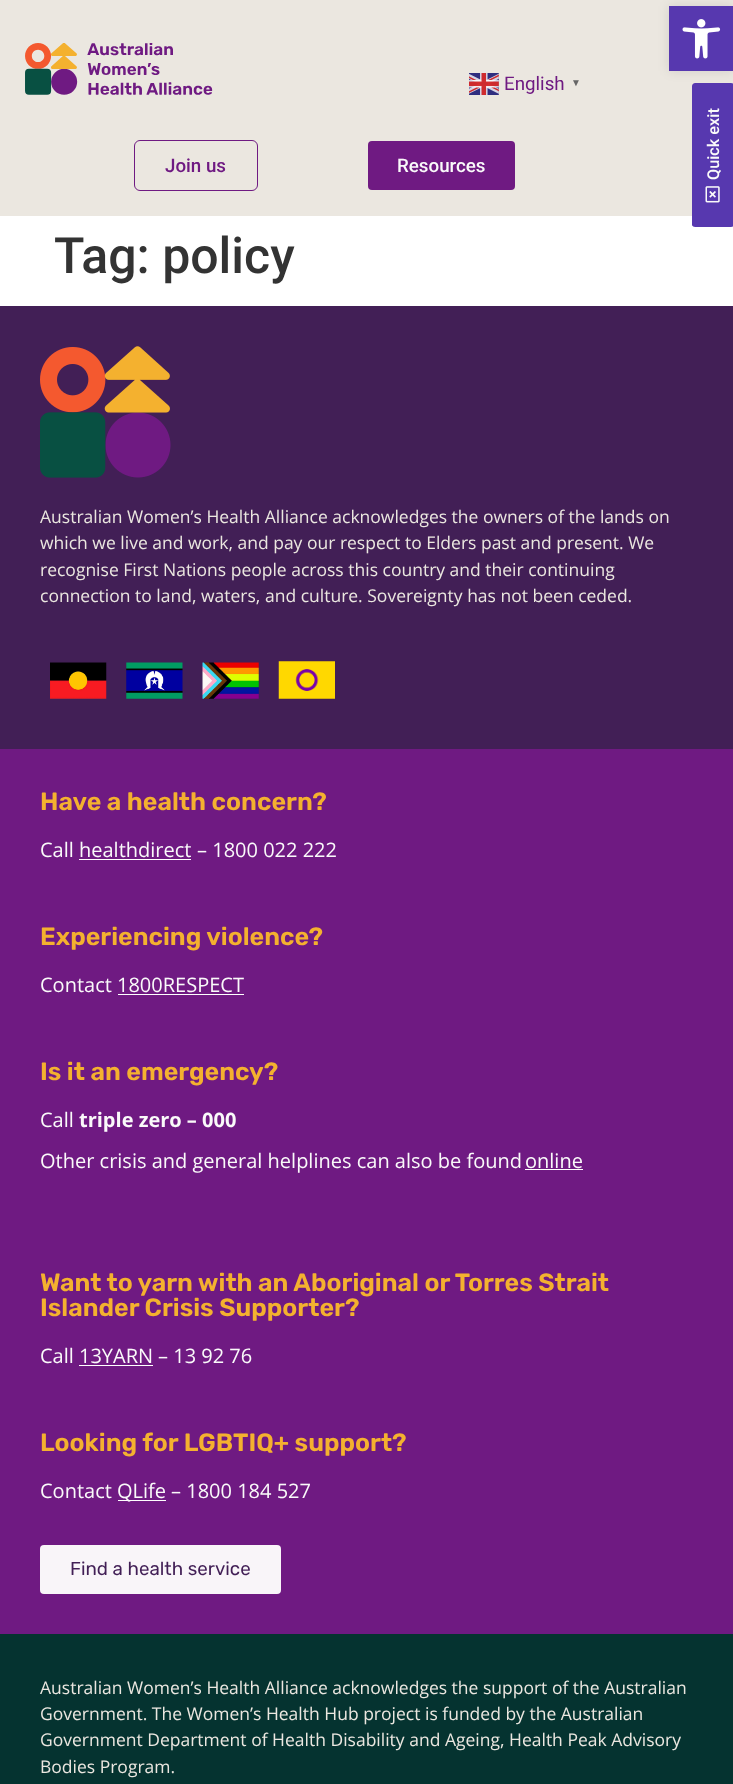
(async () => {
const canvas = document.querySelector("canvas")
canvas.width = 733
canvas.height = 1784
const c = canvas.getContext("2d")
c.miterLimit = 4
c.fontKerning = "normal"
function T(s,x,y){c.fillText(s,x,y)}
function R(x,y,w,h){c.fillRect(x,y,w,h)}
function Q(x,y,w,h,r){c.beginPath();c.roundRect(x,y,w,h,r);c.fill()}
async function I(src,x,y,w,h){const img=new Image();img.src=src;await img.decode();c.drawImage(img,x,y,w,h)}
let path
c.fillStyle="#fff"
R(0,0,733,1784)
c.fillStyle="#ebe7e0"
R(0,0,733,216)
c.fillStyle="#5738af"
path = new Path2D("M692 225v-139c0-2 2-3 3-3h36c2 0 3 1 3 3v139c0 1-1 2-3 2h-36c-1 0-3-1-3-2z")
c.fill(path)
c.fillStyle="#0000001a"
c.filter="blur(6px)"
c.beginPath()
c.rect(669,6,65,65)
c.fill()
c.filter="none"
c.fillStyle="#5738af"
R(669,6,64,65)
await I("1.png",682,19,39,40)
await I("2.png",469,73,30,22)
c.font="18.75px Roboto"
c.fillStyle="#6f1a82"
T("English",504,90)
c.font="bold 10px Liberation Sans"
c.fillStyle="#666"
T("▼",571,86)
c.beginPath()
c.roundRect(134.5,140.5,123,50,5.5)
c.strokeStyle="#6f1a82"
c.stroke()
c.font="500 18.75px Roboto"
c.fillStyle="#6f1a82"
T("Join us",165,172)
Q(368,141,147,49,4)
c.fillStyle="#fafafa"
T("Resources",397,172)
await I("3.png",25,43,188,52)
c.font="500 16.25px Roboto"
c.save()
c.translate(719,180)
c.rotate(-90 * Math.PI / 180)
c.fillText("Quick exit",0,0)
c.restore()
await I("4.png",705,186,15,17)
c.font="500 50px Roboto"
c.fillStyle="#333"
T("Tag: policy",54,273)
c.fillStyle="#421f56"
R(0,306,733,443)
await I("5.png",40,346,131,132)
c.font="17.5px Open Sans"
c.fillStyle="#ebe7e0"
T("Australian Women’s Health Alliance acknowledges the owners of the lands on",40,523)
T("which we live and work, and pay our respect to Elders past and present. We",40,549)
T("recognise First Nations people across this country and their continuing",40,576)
T("connection to land, waters, and culture. Sovereignty has not been ceded.",40,602)
await I("6.png",50,662,57,37)
await I("7.png",126,662,57,37)
await I("8.png",202,662,57,37)
await I("9.png",278,661,57,38)
c.fillStyle="#6f1a82"
R(0,749,733,885)
c.font="600 25px Rubik"
c.fillStyle="#f4b12f"
T("Have a health concern?",40,810)
c.font="20px Open Sans"
c.fillStyle="#fafafa"
T("Call",40,857)
T("healthdirect",79,857)
c.fillStyle="#fff"
R(79,859,112,1)
c.fillStyle="#fafafa"
T("– 1800 022 222",197,857)
c.font="600 25px Rubik"
c.fillStyle="#f4b12f"
T("Experiencing violence?",40,945)
c.font="20px Open Sans"
c.fillStyle="#fafafa"
T("Contact",40,992)
T("1800RESPECT",117,992)
c.fillStyle="#fff"
R(118,994,126,1)
c.font="600 25px Rubik"
c.fillStyle="#f4b12f"
T("Is it an emergency?",40,1080)
c.font="20px Open Sans"
c.fillStyle="#fafafa"
T("Call",40,1127)
c.font="bold 20px Open Sans"
T("triple zero – 000",79,1127)
c.font="20px Open Sans"
T("Other crisis and general helplines can also be found",40,1168)
T("online",525,1168)
c.fillStyle="#fff"
R(525,1169,58,1)
c.font="600 25px Rubik"
c.fillStyle="#f4b12f"
T("Want to yarn with an Aboriginal or Torres Strait",40,1291)
T("Islander Crisis Supporter?",40,1316)
c.font="20px Open Sans"
c.fillStyle="#fafafa"
T("Call",40,1363)
T("13YARN",79,1363)
c.fillStyle="#fff"
R(79,1365,74,1)
c.fillStyle="#fafafa"
T("– 13 92 76",158,1363)
c.font="600 25px Rubik"
c.fillStyle="#f4b12f"
T("Looking for LGBTIQ+ support?",40,1451)
c.font="20px Open Sans"
c.fillStyle="#fafafa"
T("Contact",40,1498)
c.fillStyle="#fff"
R(118,1500,48,1)
c.fillStyle="#fafafa"
T("QLife",117,1498)
T("– 1800 184 527",171,1498)
c.fillStyle="#f9f5f9"
Q(40,1545,241,49,4)
c.font="18.75px Rubik"
c.fillStyle="#421f56"
T("Find a health service",70,1575)
c.fillStyle="#053330"
R(0,1634,733,150)
c.font="17.5px Open Sans"
c.fillStyle="#ebe7e0"
T("Australian Women’s Health Alliance acknowledges the support of the Australian",40,1694)
T("Government. The Women’s Health Hub project is funded by the Australian",40,1720)
T("Government Department of Health Disability and Ageing, Health Peak Advisory",40,1746)
T("Bodies Program.",40,1773)
})()
